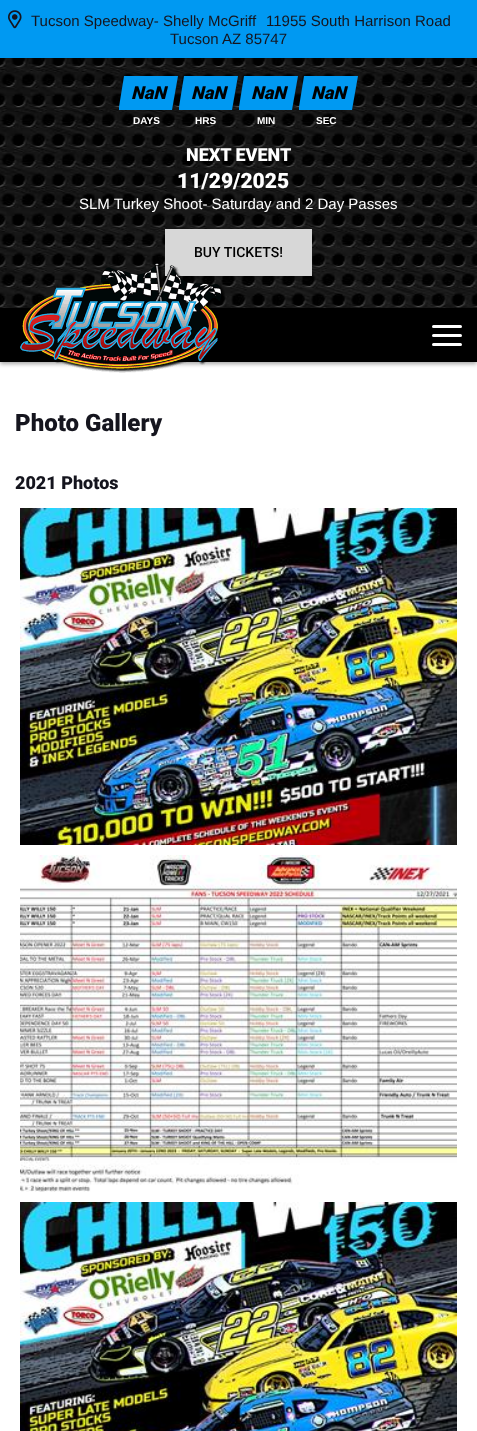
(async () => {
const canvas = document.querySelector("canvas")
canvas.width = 477
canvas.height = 1431
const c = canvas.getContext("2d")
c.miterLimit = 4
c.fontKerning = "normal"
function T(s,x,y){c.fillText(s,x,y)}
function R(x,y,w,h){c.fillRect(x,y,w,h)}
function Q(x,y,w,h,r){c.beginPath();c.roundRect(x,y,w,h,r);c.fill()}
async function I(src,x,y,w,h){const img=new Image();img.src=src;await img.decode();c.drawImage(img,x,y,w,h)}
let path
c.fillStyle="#fff"
R(0,0,477,1431)
await I("1.png",0,58,477,250)
c.fillStyle="#0099f2"
R(0,0,477,58)
await I("2.png",8,10,14,19)
c.font="15px Liberation Sans"
c.fillStyle="#15151e"
T("Tucson Speedway- Shelly McGriff",31,26)
T("11955 South Harrison Road",266,26)
T("Tucson AZ 85747",170,44)
c.fillStyle="#0099f2"
path = new Path2D("M124 76l-5 31v3h53l6-34z")
c.fill(path)
c.font="italic 900 18px Roboto"
c.fillStyle="#000"
T("NaN",131,99)
c.fillStyle="#0099f2"
path = new Path2D("M184 76l-5 31v3h53l6-34z")
c.fill(path)
c.fillStyle="#000"
T("NaN",191,99)
c.fillStyle="#0099f2"
path = new Path2D("M244 76l-5 31v3h53l6-34z")
c.fill(path)
c.fillStyle="#000"
T("NaN",251,99)
c.fillStyle="#0099f2"
path = new Path2D("M304 76l-5 31v3h53l6-34z")
c.fill(path)
c.fillStyle="#000"
T("NaN",311,99)
c.font="bold 10px Liberation Sans"
c.fillStyle="#fff"
T("DAYS",133,124)
T("HRS",195,124)
T("MIN",257,124)
T("SEC",316,124)
c.font="900 18px Roboto"
T("NEXT EVENT",186,161)
c.font="900 21px Roboto"
T("11/29/2025",177,188)
c.font="15px Liberation Sans"
T("SLM Turkey Shoot- Saturday and 2 Day Passes",79,209)
c.fillStyle="#d7d7d7"
R(165,229,147,47)
c.font="500 14px Roboto"
c.fillStyle="#000"
T("BUY TICKETS!",194,257)
c.fillStyle="#00000059"
c.filter="blur(2px)"
c.beginPath()
c.rect(0,310,477,54)
c.fill()
c.filter="none"
c.fillStyle="#000"
R(0,308,477,54)
await I("3.png",20,263,205,110)
c.fillStyle="#fff"
Q(432,325,30,3,1.5)
Q(432,334,30,3,1.5)
Q(432,343,30,3,1.5)
c.font="900 24px Roboto"
c.fillStyle="#15151e"
T("Photo Gallery",15,431)
c.font="900 18px Roboto"
T("2021 Photos",15,489)
await I("4.png",20,508,437,337)
await I("5.png",20,855,437,337)
await I("6.png",20,1202,437,229)
})()
